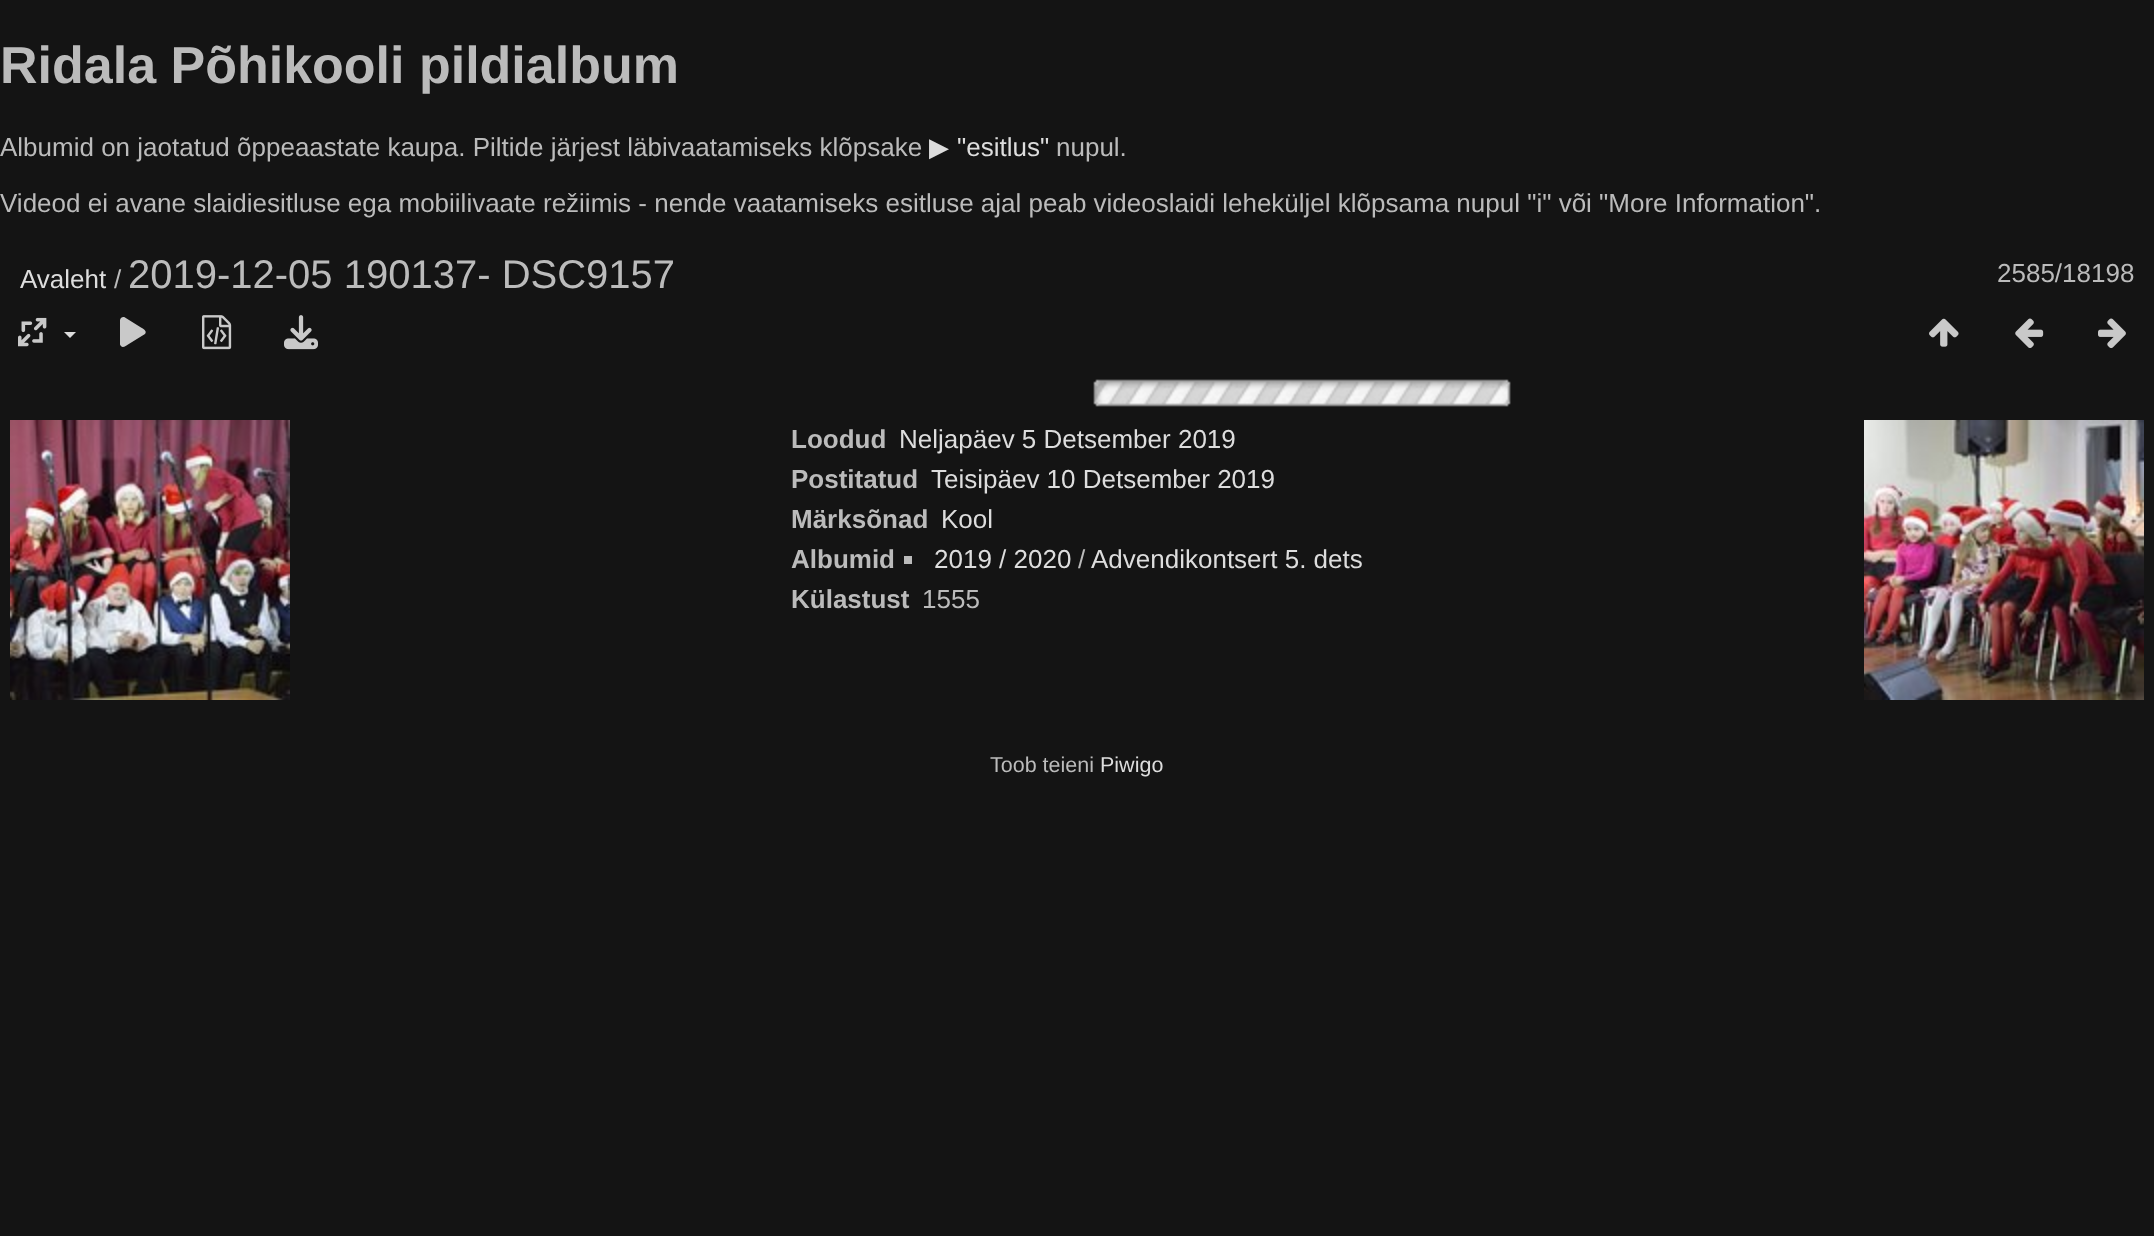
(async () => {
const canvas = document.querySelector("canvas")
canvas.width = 2154
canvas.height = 1236
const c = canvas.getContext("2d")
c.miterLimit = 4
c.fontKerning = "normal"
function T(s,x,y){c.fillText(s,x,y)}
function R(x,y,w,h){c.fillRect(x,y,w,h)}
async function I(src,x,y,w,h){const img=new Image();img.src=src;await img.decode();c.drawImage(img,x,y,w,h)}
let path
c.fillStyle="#141414"
R(0,0,2154,1236)
c.font="bold 52px Liberation Sans"
c.fillStyle="#bbb"
T("Ridala Põhikooli pildialbum",0,83)
c.font="26px Liberation Sans"
T("Albumid on jaotatud õppeaastate kaupa. Piltide järjest läbivaatamiseks klõpsake",0,156)
c.font="26px DejaVu Sans"
c.fillStyle="#ddd"
T("▶",929,156)
c.font="26px Liberation Sans"
T("\"esitlus\"",957,156)
c.fillStyle="#bbb"
T("nupul.",1056,156)
T("Videod ei avane slaidiesitluse ega mobiilivaate režiimis - nende vaatamiseks esitluse ajal peab videoslaidi leheküljel klõpsama nupul \"i\" või \"More Information\".",0,212)
c.fillStyle="#ddd"
T("Avaleht",20,288)
c.fillStyle="#bbb"
T("/",114,288)
c.font="40px Liberation Sans"
T("2019-12-05 190137- DSC9157",128,288)
c.font="26px Liberation Sans"
T("2585/18198",1997,282)
await I("1.png",18,317,29,30)
c.fillStyle="#ddd"
path = new Path2D("M64 332h12l-6 6z")
c.fill(path)
c.fillStyle="#c9c9c9"
path = new Path2D("M125 317.5c-2-1-4.5 0-5 2.5v24.5c1.5 4.5 6 1.5 8 0l17-10.5c2.5-3-2-5.5-4-6.5z")
c.fill(path)
await I("2.png",202,315,30,35)
await I("3.png",284,315,34,35)
await I("4.png",1929,318,30,29)
await I("5.png",2015,318,29,30)
await I("6.png",2098,318,28,31)
await I("7.png",1093,379,418,28)
await I("8.png",10,420,280,280)
await I("9.png",1864,420,280,280)
c.font="bold 26px Liberation Sans"
c.fillStyle="#bbb"
T("Loodud",791,448)
c.font="26px Liberation Sans"
c.fillStyle="#ddd"
T("Neljapäev 5 Detsember 2019",899,448)
c.font="bold 26px Liberation Sans"
c.fillStyle="#bbb"
T("Postitatud",791,488)
c.font="26px Liberation Sans"
c.fillStyle="#ddd"
T("Teisipäev 10 Detsember 2019",931,488)
c.font="bold 26px Liberation Sans"
c.fillStyle="#bbb"
T("Märksõnad",791,528)
c.font="26px Liberation Sans"
c.fillStyle="#ddd"
T("Kool",941,528)
c.font="bold 26px Liberation Sans"
c.fillStyle="#bbb"
T("Albumid",791,568)
R(904,556,8,8)
c.font="26px Liberation Sans"
c.fillStyle="#ddd"
T("2019 / 2020",934,568)
c.fillStyle="#bbb"
T("/",1078,568)
c.fillStyle="#ddd"
T("Advendikontsert 5. dets",1091,568)
c.font="bold 26px Liberation Sans"
c.fillStyle="#bbb"
T("Külastust",791,608)
c.font="26px Liberation Sans"
T("1555",922,608)
c.font="21.5px Liberation Sans"
T("Toob teieni",990,772)
c.fillStyle="#ddd"
T("Piwigo",1100,772)
})()
